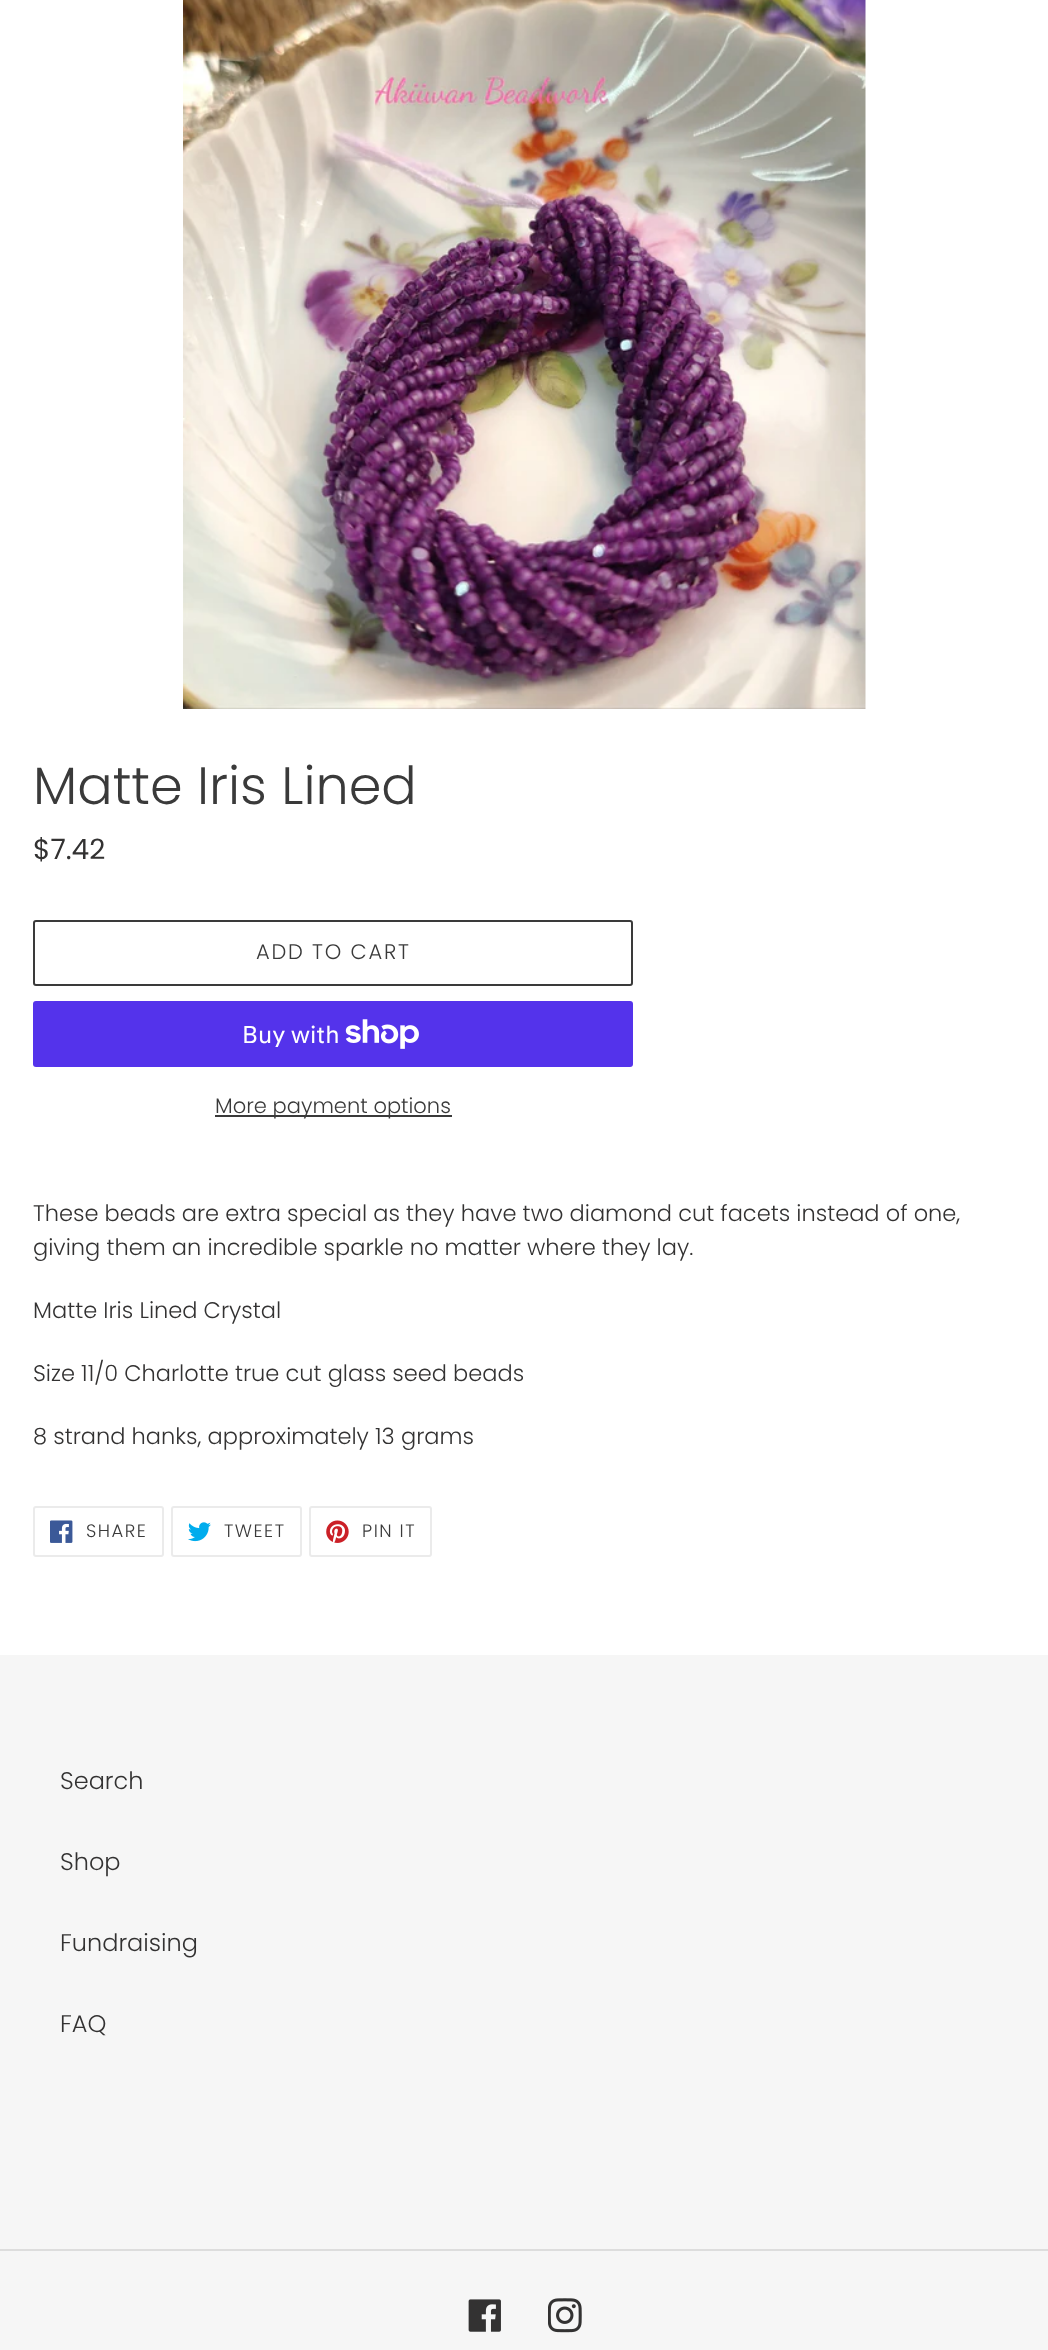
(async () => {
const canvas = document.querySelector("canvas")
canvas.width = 1048
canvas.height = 2350
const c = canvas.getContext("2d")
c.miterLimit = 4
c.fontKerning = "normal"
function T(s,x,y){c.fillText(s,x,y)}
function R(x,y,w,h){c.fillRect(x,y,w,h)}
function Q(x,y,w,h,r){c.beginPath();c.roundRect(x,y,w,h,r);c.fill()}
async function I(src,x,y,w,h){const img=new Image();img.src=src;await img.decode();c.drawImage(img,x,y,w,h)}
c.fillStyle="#fff"
R(0,0,1048,2350)
await I("1.png",183,0,683,709)
c.font="300 52.5px Poppins"
c.fillStyle="#3a3a3a"
T("Matte Iris Lined",33,804)
c.font="28px Poppins"
c.fillStyle="#333232"
T("$7.42",33,859)
c.beginPath()
c.roundRect(34,921,598,64,2)
c.strokeStyle="#3a3a3a"
c.lineWidth=2
c.stroke()
c.letterSpacing="1.75px"
c.font="300 21px Poppins"
c.fillStyle="#3a3a3a"
T("ADD TO CART",256,959)
c.fillStyle="#5433eb"
Q(33,1001,600,66,3)
c.letterSpacing="0px"
c.font="24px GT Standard"
c.fillStyle="#fff"
T("Buy with",242,1043)
await I("2.png",345,1019,74,30)
c.fillStyle="#3a3a3a"
R(215,1115,237,2)
c.font="300 21px Poppins"
T("More payment options",215,1113)
c.font="300 22.5px Poppins"
c.fillStyle="#333232"
T("These beads are extra special as they have two diamond cut facets instead of one,",33,1221)
T("giving them an incredible sparkle no matter where they lay.",33,1255)
T("Matte Iris Lined Crystal",33,1318)
T("Size 11/0 Charlotte true cut glass seed beads",33,1381)
T("8 strand hanks, approximately 13 grams",33,1444)
c.beginPath()
c.roundRect(34,1507,129,49,2)
c.strokeStyle="#ebebeb"
c.stroke()
await I("3.png",50,1520,23,23)
c.letterSpacing="1.5px"
c.font="300 18px Poppins"
c.fillStyle="#3a3a3a"
T("SHARE",86,1537)
c.beginPath()
c.roundRect(172,1507,129,49,2)
c.stroke()
await I("4.png",188,1522,23,20)
T("TWEET",224,1537)
c.beginPath()
c.roundRect(310,1507,121,49,2)
c.stroke()
await I("5.png",326,1520,23,23)
T("PIN IT",362,1537)
c.fillStyle="#f6f6f6"
R(0,1655,1048,695)
c.letterSpacing="0px"
c.font="300 24px Poppins"
c.fillStyle="#333232"
T("Search",60,1789)
T("Shop",60,1870)
T("Fundraising",60,1951)
T("FAQ",60,2032)
c.fillStyle="#ddd"
R(0,2249,1048,2)
await I("6.png",468,2299,33,33)
await I("7.png",548,2298,34,35)
})()
